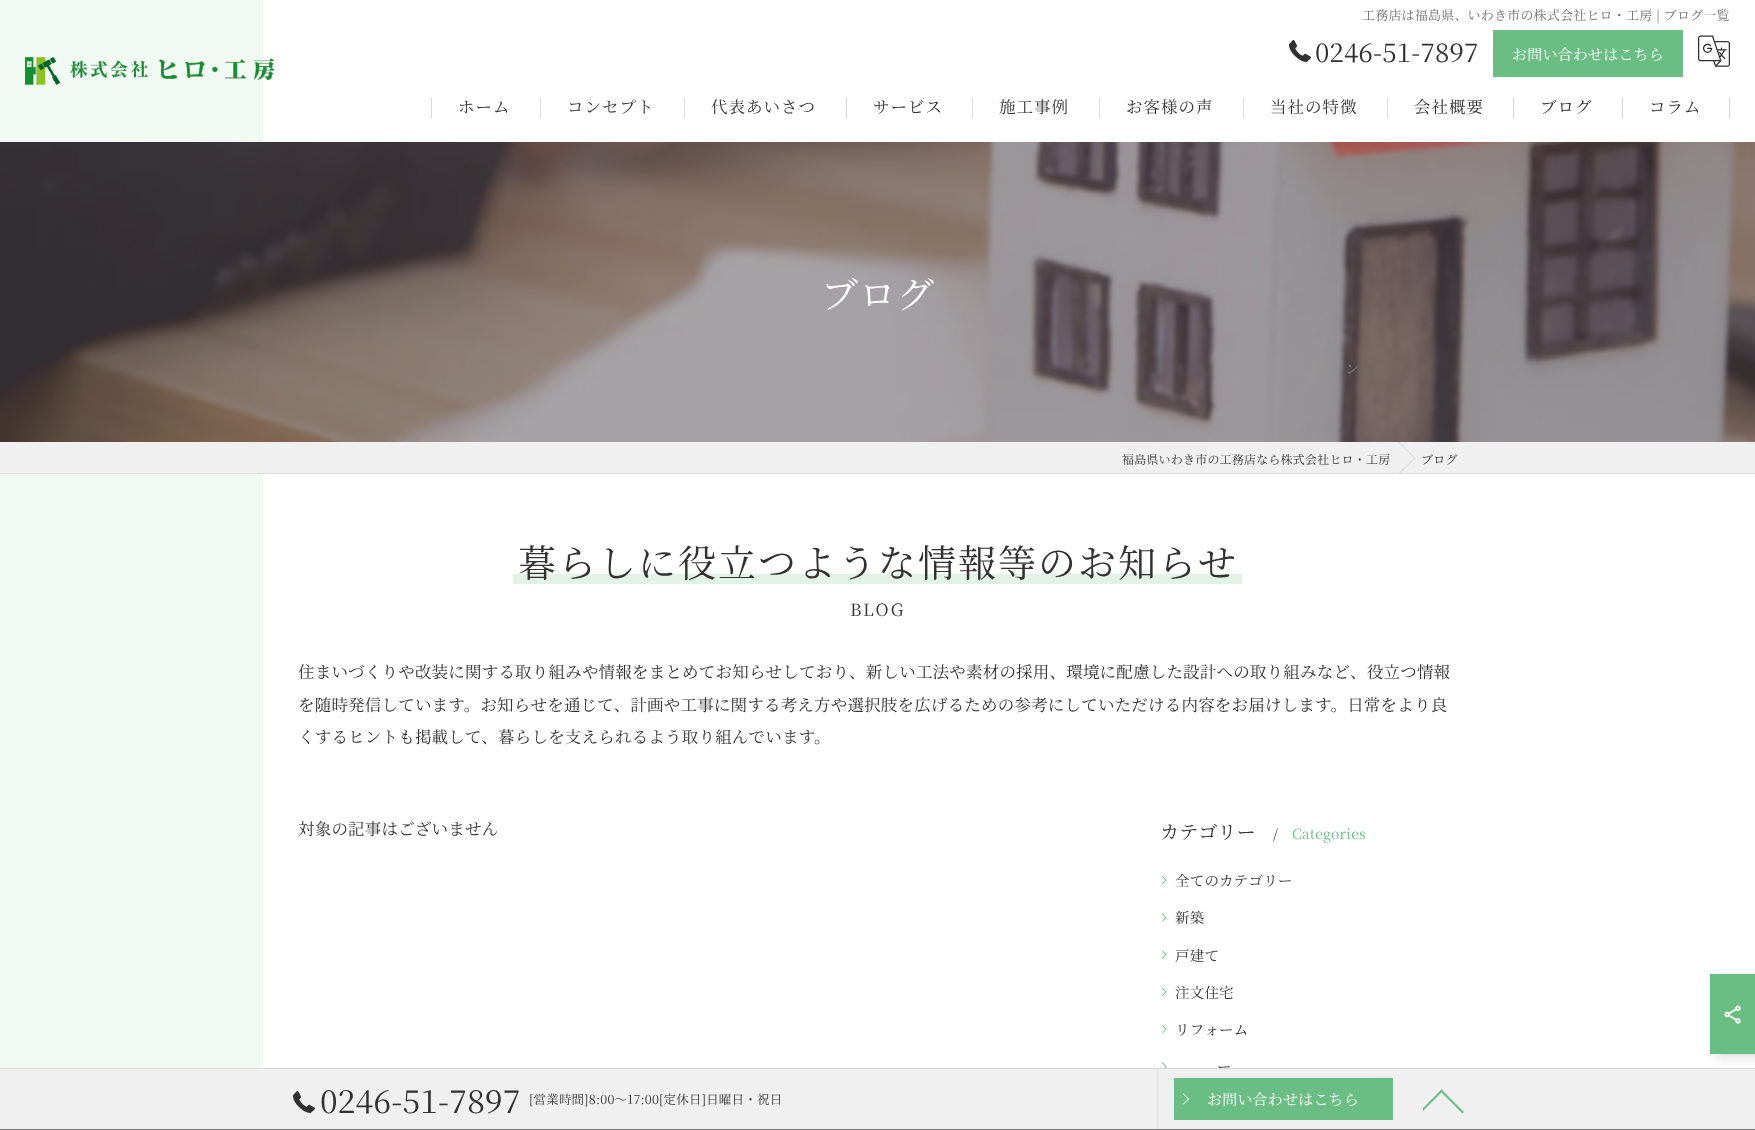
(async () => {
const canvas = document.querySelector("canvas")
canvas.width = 1755
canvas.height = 1130
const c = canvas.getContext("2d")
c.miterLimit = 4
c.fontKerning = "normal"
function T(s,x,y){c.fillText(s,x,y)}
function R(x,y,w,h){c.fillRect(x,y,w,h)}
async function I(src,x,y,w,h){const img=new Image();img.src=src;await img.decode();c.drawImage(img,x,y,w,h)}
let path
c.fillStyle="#fff"
R(0,0,1755,1130)
c.fillStyle="#f1f9f3"
R(0,0,263,1068)
c.letterSpacing="0.2px"
c.font="13px Noto Serif JP"
c.fillStyle="#6f6f6f"
T("工務店は福島県、いわき市の株式会社ヒロ・工房 | ブログ一覧",1362,20)
await I("1.png",1289,40,22,22)
c.font="26px Noto Serif JP"
c.fillStyle="#313131"
T("0246-51-7897",1315,62)
c.fillStyle="#6abe83"
R(1493,30,190,47)
c.font="15px Noto Serif JP"
c.fillStyle="#fff"
T("お問い合わせはこちら",1512,60)
await I("2.png",1698,35,32,32)
await I("3.png",25,57,250,28)
c.fillStyle="#d9d9d9"
R(431,98,1,20)
c.letterSpacing="1px"
c.font="16.5px Noto Serif JP"
c.fillStyle="#313131"
T("ホーム",458,113)
c.fillStyle="#d9d9d9"
R(540,98,1,20)
c.fillStyle="#313131"
T("コンセプト",567,113)
c.fillStyle="#d9d9d9"
R(684,98,1,20)
c.fillStyle="#313131"
T("代表あいさつ",711,113)
c.fillStyle="#d9d9d9"
R(846,98,1,20)
c.fillStyle="#313131"
T("サービス",873,113)
c.fillStyle="#d9d9d9"
R(972,98,1,20)
c.fillStyle="#313131"
T("施工事例",999,113)
c.fillStyle="#d9d9d9"
R(1099,98,1,20)
c.fillStyle="#313131"
T("お客様の声",1126,113)
c.fillStyle="#d9d9d9"
R(1243,98,1,20)
c.fillStyle="#313131"
T("当社の特徴",1270,113)
c.fillStyle="#5e555a"
R(0,142,1755,300)
await I("4.png",0,142,1755,300)
c.letterSpacing="0.2px"
c.font="14px Noto Serif JP"
c.fillStyle="#8b8688"
T("ン",1345,374)
c.fillStyle="#d9d9d9"
R(1387,98,1,20)
c.letterSpacing="1px"
c.font="16.5px Noto Serif JP"
c.fillStyle="#313131"
T("会社概要",1414,113)
c.fillStyle="#d9d9d9"
R(1513,98,1,20)
c.fillStyle="#313131"
T("ブログ",1540,113)
c.fillStyle="#d9d9d9"
R(1622,98,1,20)
c.fillStyle="#313131"
T("コラム",1649,113)
c.fillStyle="#d9d9d9"
R(1729,98,1,20)
c.font="37px Noto Serif JP"
c.fillStyle="#fff"
T("ブログ",821,308)
c.fillStyle="#f0f0f0"
R(0,442,1755,31)
c.fillStyle="#dedede"
R(0,473,1755,1)
c.letterSpacing="0.2px"
c.font="12px Noto Serif JP"
c.fillStyle="#313131"
T("福島県いわき市の工務店なら株式会社ヒロ・工房",1122,464)
c.save()
c.beginPath()
c.rect(1391,442,67,31)
c.clip()
c.fillStyle="#dedede"
path = new Path2D("M1393.5 436l22 22h-1.5l-21.5-21.5zm22 22l-22 22l-1-1l21.5-21z")
c.fill(path)
c.restore()
T("ブログ",1421,464)
c.fillStyle="#e1f2e6"
R(513,574,729,10)
c.letterSpacing="2px"
c.font="38px Noto Serif JP"
c.fillStyle="#313131"
T("暮らしに役立つような情報等のお知らせ",518,577)
c.font="17px Noto Serif JP"
T("BLOG",850,616)
c.letterSpacing="0.2px"
c.font="16.5px Noto Serif JP"
T("住まいづくりや改装に関する取り組みや情報をまとめてお知らせしており、新しい工法や素材の採用、環境に配慮した設計への取り組みなど、役立つ情報",298,678)
T("を随時発信しています。お知らせを通じて、計画や工事に関する考え方や選択肢を広げるための参考にしていただける内容をお届けします。日常をより良",298,711)
T("くするヒントも掲載して、暮らしを支えられるよう取り組んでいます。",298,743)
T("対象の記事はございません",298,835)
c.font="19px Noto Serif JP"
T("カテゴリー",1160,839)
c.font="14px Noto Serif JP"
T("/",1273,839)
c.fillStyle="#6abe83"
T("Categories",1292,839)
path = new Path2D("M1162.5 876l4 4l-.5 1l-4-4.5z")
c.fill(path)
path = new Path2D("M1166 879.5l.5 .5l-4 4.5l-.5-1z")
c.fill(path)
c.font="14.5px Noto Serif JP"
c.fillStyle="#313131"
T("全てのカテゴリー",1175,886)
c.fillStyle="#6abe83"
path = new Path2D("M1162.5 913l4 4.5l-.5 .5l-4-4z")
c.fill(path)
path = new Path2D("M1166 916.5l.5 1l-4 4l-.5-.5z")
c.fill(path)
c.fillStyle="#313131"
T("新築",1175,923)
c.fillStyle="#6abe83"
path = new Path2D("M1162.5 950.5l4 4l-.5 1l-4-4.5z")
c.fill(path)
path = new Path2D("M1166 954l.5 .5l-4 4.5l-.5-1z")
c.fill(path)
c.fillStyle="#313131"
T("戸建て",1175,961)
c.fillStyle="#6abe83"
path = new Path2D("M1162.5 987.5l4 4.5l-.5 .5l-4-4z")
c.fill(path)
path = new Path2D("M1166 991l.5 1l-4 4l-.5-.5z")
c.fill(path)
c.fillStyle="#313131"
T("注文住宅",1175,998)
c.fillStyle="#6abe83"
path = new Path2D("M1162.5 1025l4 4l-.5 1l-4-4.5z")
c.fill(path)
path = new Path2D("M1166 1028.5l.5 .5l-4 4.5l-.5-.5z")
c.fill(path)
c.fillStyle="#313131"
T("リフォーム",1175,1035)
c.fillStyle="#6abe83"
path = new Path2D("M1162.5 1062l4 4.5l-.5 .5l-4-4z")
c.fill(path)
path = new Path2D("M1166 1066l.5 .5l-4 4l-.5-.5z")
c.fill(path)
c.fillStyle="#313131"
T("ー",1217,1072)
c.fillStyle="#f0f0f0"
R(0,1069,1755,60)
c.fillStyle="#d8d8d8"
R(0,1068,1755,1)
c.fillStyle="#787878"
path = new Path2D("M1755 1128v1h-1755v1h1755z")
c.fill(path)
c.fillStyle="#0000001a"
c.filter="blur(5px)"
c.beginPath()
c.rect(1715,979,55,80)
c.fill()
c.filter="none"
c.fillStyle="#6abe83"
R(1710,974,45,80)
await I("5.png",1724,1005,17,19)
c.fillStyle="#dedede"
R(1157,1069,1,60)
await I("6.png",293,1091,22,22)
c.font="32px Noto Serif JP"
c.fillStyle="#313131"
T("0246-51-7897",320,1113)
c.font="12.5px Noto Serif JP"
T("[営業時間]8:00～17:00[定休日]日曜日・祝日",529,1104)
c.fillStyle="#6abe83"
R(1174,1078,219,42)
c.fillStyle="#fff"
path = new Path2D("M1183.5 1093.5l5.5 5.5l-.5 .5l-5.5-5.5z")
c.fill(path)
path = new Path2D("M1188.5 1098.5l.5 .5l-5.5 5.5l-.5-.5z")
c.fill(path)
c.font="15px Noto Serif JP"
T("お問い合わせはこちら",1207,1105)
c.fillStyle="#6abe83"
path = new Path2D("M1441.5 1089.5l22.5 22.5l-1.5 1.5l-22.5-22.5z")
c.fill(path)
c.save()
c.beginPath()
c.rect(1423,1079,40,40)
c.clip()
path = new Path2D("M1441.5 1089.5l1.5 1.5l-22.5 22.5l-1.5-1.5z")
c.fill(path)
c.restore()
})()
